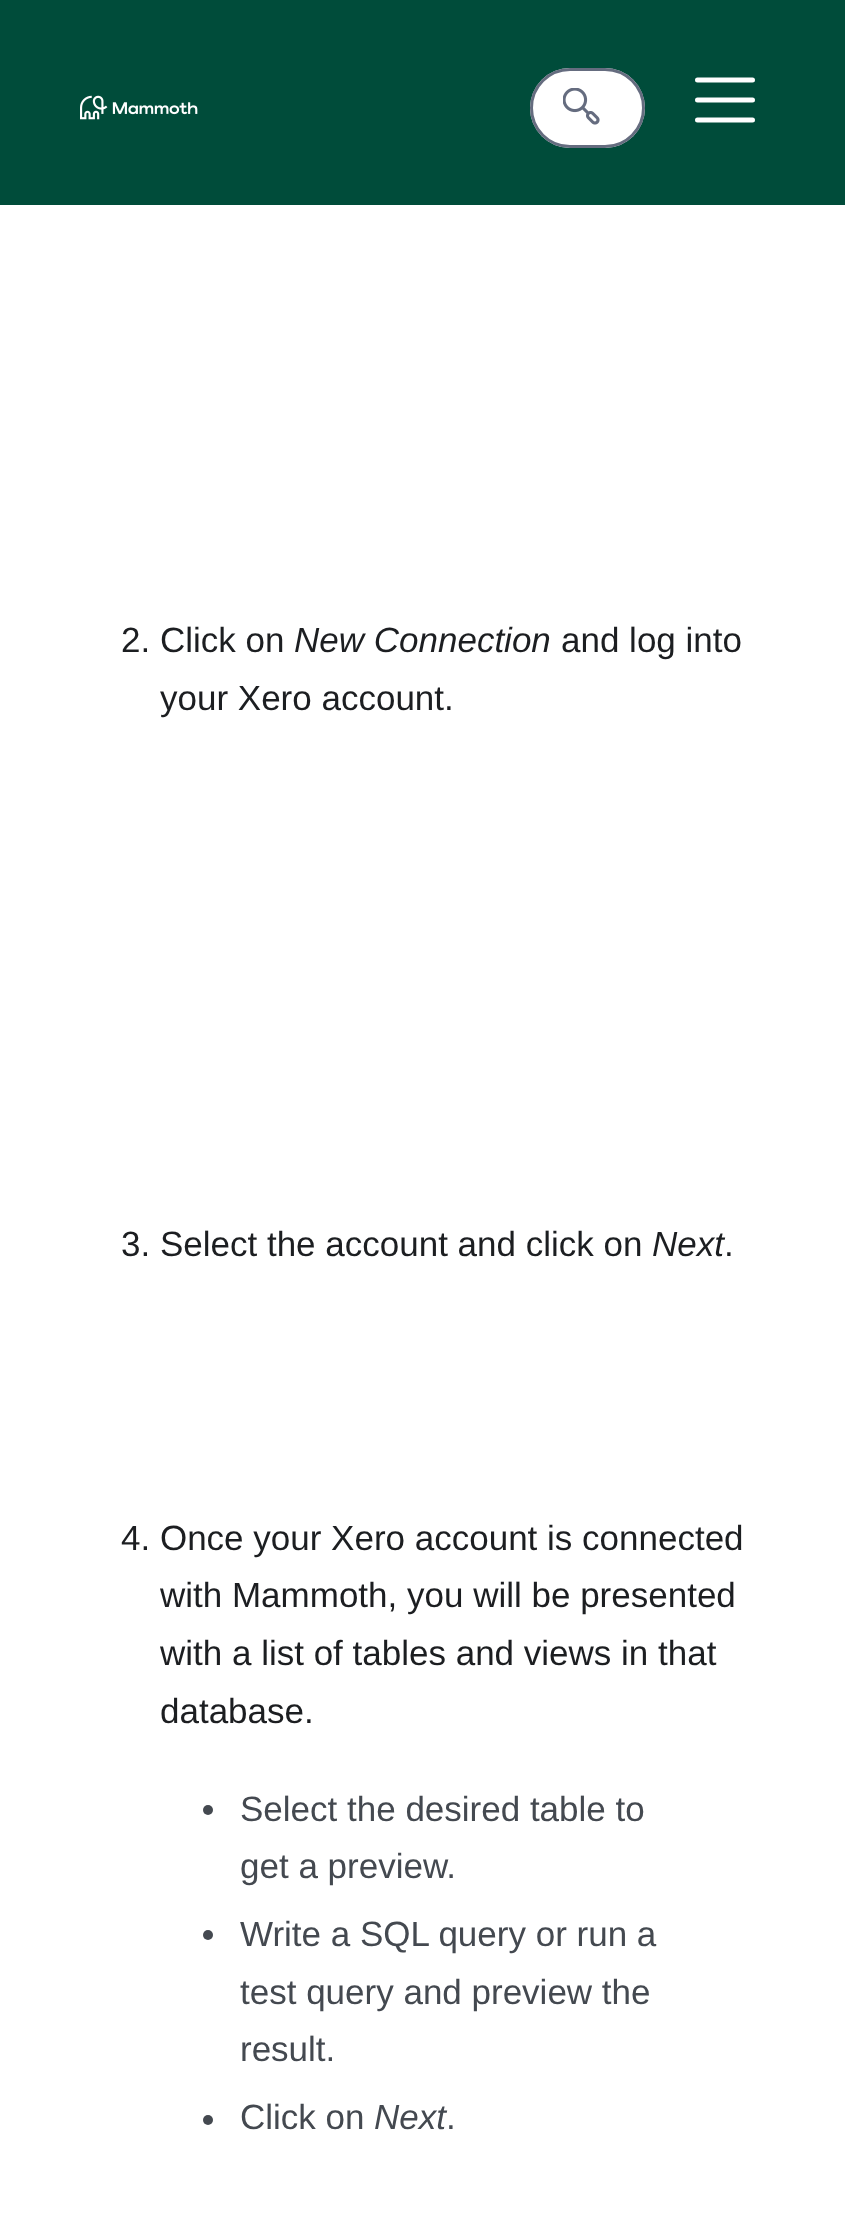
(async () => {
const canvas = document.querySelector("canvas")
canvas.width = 845
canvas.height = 2214
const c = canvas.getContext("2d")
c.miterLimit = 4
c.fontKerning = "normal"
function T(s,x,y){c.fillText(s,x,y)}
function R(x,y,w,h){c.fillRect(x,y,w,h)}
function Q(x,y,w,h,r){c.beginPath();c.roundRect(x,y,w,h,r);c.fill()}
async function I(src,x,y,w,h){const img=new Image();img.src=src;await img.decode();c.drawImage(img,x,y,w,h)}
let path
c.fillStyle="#fff"
R(0,0,845,2214)
c.fillStyle="#004c3a"
R(0,0,845,205)
c.fillStyle="#fff"
Q(530,68,115,80,40)
await I("1.png",563,88,37,37)
c.beginPath()
c.roundRect(531.5,69.5,112,77,38.5)
c.strokeStyle="#656c7f"
c.lineWidth=3
c.stroke()
await I("2.png",80,95,118,25)
path = new Path2D("M697.5 80h55m-55 20h55m-55 20h55")
c.strokeStyle="#fff"
c.lineWidth=5
c.lineCap="round"
c.stroke(path)
c.font="35px Liberation Sans"
c.fillStyle="#1c1e21"
T("2. Click on",121,652)
c.font="italic 35px Liberation Sans"
T("New Connection",294,652)
c.font="35px Liberation Sans"
T("and log into",561,652)
T("your Xero account.",160,710)
T("3. Select the account and click on",121,1256)
c.font="italic 35px Liberation Sans"
T("Next",652,1256)
c.font="35px Liberation Sans"
T(".",724,1256)
T("4. Once your Xero account is connected",121,1550)
T("with Mammoth, you will be presented",160,1607)
T("with a list of tables and views in that",160,1665)
T("database.",160,1723)
c.fillStyle="#444950"
c.beginPath()
c.arc(208,1810,5,0,7)
c.fill()
T("Select the desired table to",240,1821)
T("get a preview.",240,1878)
c.beginPath()
c.arc(208,1935,5,0,7)
c.fill()
T("Write a SQL query or run a",240,1946)
T("test query and preview the",240,2004)
T("result.",240,2061)
c.beginPath()
c.arc(208,2120,5,0,7)
c.fill()
T("Click on",240,2129)
c.font="italic 35px Liberation Sans"
T("Next",374,2129)
c.font="35px Liberation Sans"
T(".",446,2129)
})()
